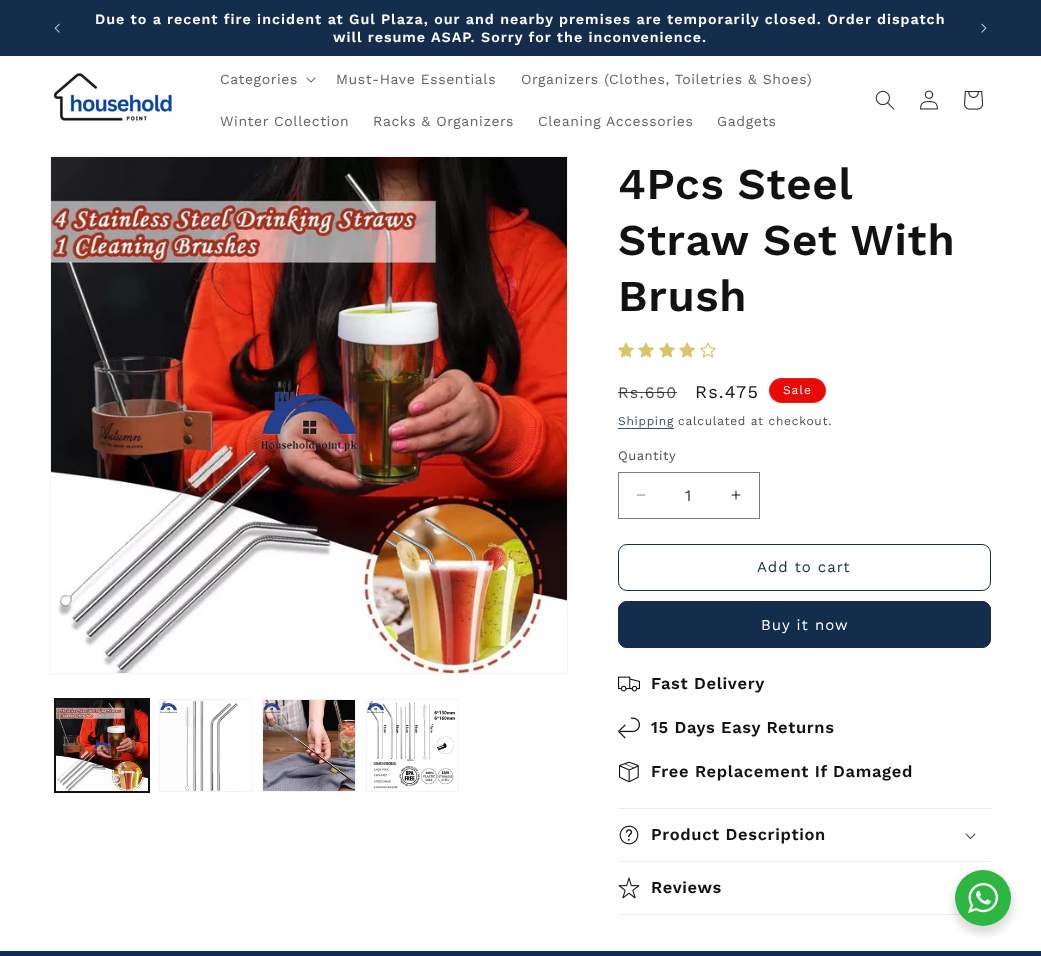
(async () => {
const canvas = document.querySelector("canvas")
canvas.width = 1041
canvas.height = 956
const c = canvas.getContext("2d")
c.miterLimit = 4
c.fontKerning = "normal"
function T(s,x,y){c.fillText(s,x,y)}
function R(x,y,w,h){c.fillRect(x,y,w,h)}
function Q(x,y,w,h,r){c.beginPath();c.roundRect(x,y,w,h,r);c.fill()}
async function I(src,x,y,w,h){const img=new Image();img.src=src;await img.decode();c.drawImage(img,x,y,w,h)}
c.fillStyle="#fff"
R(0,0,1041,956)
c.fillStyle="#152d4d"
R(0,0,1041,56)
await I("1.png",54,23,6,10)
c.letterSpacing="1px"
c.font="600 14.3px Work Sans"
c.fillStyle="#fff"
T("Due to a recent fire incident at Gul Plaza, our and nearby premises are temporarily closed. Order dispatch",95,24)
T("will resume ASAP. Sorry for the inconvenience.",333,42)
await I("2.png",981,23,6,10)
await I("3.png",53,73,125,51)
c.letterSpacing="0.6px"
c.font="14px Work Sans"
c.fillStyle="#636161"
T("Categories",220,84)
await I("4.png",306,77,10,6)
T("Must-Have Essentials",336,84)
T("Organizers (Clothes, Toiletries & Shoes)",521,84)
T("Winter Collection",220,126)
T("Racks & Organizers",373,126)
T("Cleaning Accessories",538,126)
T("Gadgets",717,126)
await I("5.png",875,90,19,20)
await I("6.png",920,90,18,20)
await I("7.png",964,91,20,19)
c.strokeStyle="#f3f3f3"
c.strokeRect(50.5,156.5,517,517)
await I("8.png",51,157,516,516)
c.strokeStyle="#121212"
c.strokeRect(54.5,698.5,95,94)
c.strokeRect(55.5,699.5,93,92)
await I("9.png",56,700,92,91)
c.strokeStyle="#f3f3f3"
c.strokeRect(159.5,699.5,92,92)
await I("10.png",160,700,79,91)
c.strokeRect(262.5,699.5,93,92)
await I("11.png",263,700,92,91)
c.strokeRect(366.5,699.5,92,92)
await I("12.png",367,700,88,89)
c.letterSpacing="0.65px"
c.wordSpacing="-1px"
c.font="600 44px Work Sans"
c.fillStyle="#121212"
T("4Pcs Steel",618,199)
c.wordSpacing="0px"
T("Straw Set With",618,255)
T("Brush",618,311)
await I("13.png",618,342,16,16)
await I("13.png",638,342,16,16)
await I("13.png",659,342,16,16)
await I("13.png",679,342,16,16)
await I("14.png",700,342,16,16)
c.letterSpacing="1.25px"
c.font="16px Work Sans"
c.fillStyle="#4d4d4d"
T("Rs.650",618,398)
c.fillStyle="#121212bf"
R(618,392,59,1)
c.font="18px Work Sans"
c.fillStyle="#121212"
T("Rs.475",695,398)
c.fillStyle="#e90909"
Q(769,378,57,25,12.5)
c.beginPath()
c.roundRect(769.5,378.5,56,24,12)
c.strokeStyle="#ffffff1a"
c.stroke()
c.letterSpacing="1px"
c.font="12px Work Sans"
c.fillStyle="#fff"
T("Sale",783,394)
c.letterSpacing="0.7px"
c.fillStyle="#384d68"
T("Shipping",618,425)
R(618,428,56,1)
c.fillStyle="#4d4d4d"
T("calculated at checkout.",678,425)
c.letterSpacing="0.5px"
c.font="13px Work Sans"
T("Quantity",618,460)
await I("15.png",636,494,10,2)
await I("16.png",731,490,10,10)
c.strokeStyle="#7d7d7d"
c.strokeRect(618.5,472.5,141,46)
c.letterSpacing="0px"
c.font="16px Work Sans"
c.fillStyle="#363636"
T("1",685,501)
c.beginPath()
c.roundRect(618.5,544.5,372,46,8.5)
c.strokeStyle="#152d4d"
c.stroke()
c.letterSpacing="1px"
c.font="15px Work Sans"
c.fillStyle="#152d4d"
T("Add to cart",757,572)
Q(618,601,373,47,9)
c.beginPath()
c.roundRect(618.5,601.5,372,46,8.5)
c.stroke()
c.fillStyle="#fff"
T("Buy it now",761,630)
await I("17.png",618,676,22,16)
c.letterSpacing="0.65px"
c.font="600 16.5px Work Sans"
c.fillStyle="#121212"
T("Fast Delivery",651,689)
await I("18.png",618,717,22,22)
T("15 Days Easy Returns",651,733)
await I("19.png",618,761,21,22)
T("Free Replacement If Damaged",651,777)
c.fillStyle="#ececec"
R(618,808,373,1)
R(618,861,373,1)
await I("20.png",619,825,20,20)
c.fillStyle="#121212"
T("Product Description",651,840)
await I("21.png",965,833,11,6)
c.fillStyle="#ececec"
R(618,914,343,1)
await I("22.png",618,877,22,22)
c.fillStyle="#121212"
T("Reviews",651,893)
c.fillStyle="#00000024"
c.filter="blur(4px)"
c.beginPath()
c.roundRect(953,874,60,60,30)
c.fill()
c.filter="none"
c.fillStyle="#2db742"
c.beginPath()
c.arc(983,898,28,0,7)
c.fill()
await I("23.png",968,883,30,30)
c.fillStyle="#152d4d"
R(0,951,1041,5)
})()
